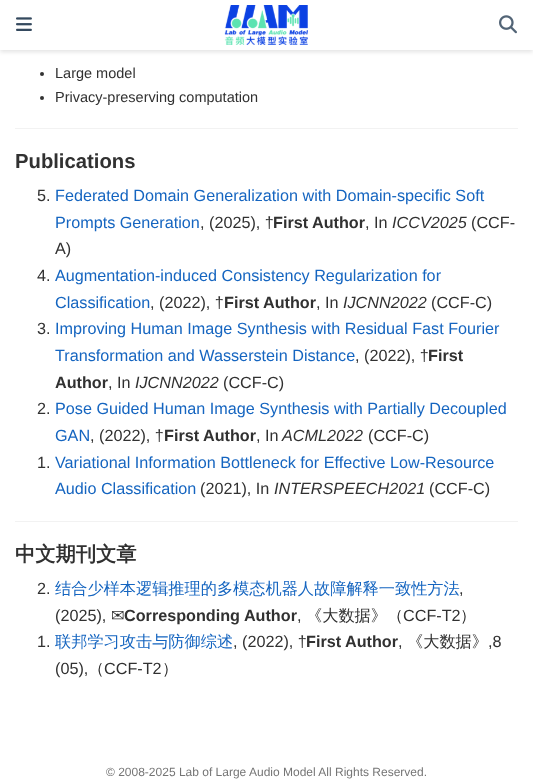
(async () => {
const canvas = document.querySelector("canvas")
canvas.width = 533
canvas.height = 782
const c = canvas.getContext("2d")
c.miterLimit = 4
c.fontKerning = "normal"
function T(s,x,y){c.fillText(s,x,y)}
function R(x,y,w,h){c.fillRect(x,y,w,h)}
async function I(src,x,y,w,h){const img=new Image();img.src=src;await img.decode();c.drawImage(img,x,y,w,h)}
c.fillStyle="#fff"
R(0,0,533,782)
c.fillStyle="#0000001c"
c.filter="blur(2px)"
c.beginPath()
c.rect(0,2,533,50)
c.fill()
c.filter="none"
c.fillStyle="#fff"
R(0,0,533,50)
await I("1.png",16,17,16,14)
await I("2.png",224,5,84,40)
await I("3.png",499,15,18,19)
c.fillStyle="#333"
c.beginPath()
c.arc(42,74,2,0,7)
c.fill()
c.font="14.5px Liberation Sans"
c.fillStyle="#313131"
T("Large model",55,78)
c.fillStyle="#333"
c.beginPath()
c.arc(42,98,2,0,7)
c.fill()
c.fillStyle="#313131"
T("Privacy-preserving computation",55,102)
c.fillStyle="#f2f2f2"
R(15,128,503,1)
c.font="bold 20.25px Liberation Sans"
c.fillStyle="#313131"
T("Publications",15,168)
c.font="16.2px Liberation Sans"
T("5.",37,201)
c.fillStyle="#1565c0"
T("Federated Domain Generalization with Domain-specific Soft",55,201)
T("Prompts Generation",55,228)
c.fillStyle="#313131"
T(", (2025), †",200,228)
c.font="bold 16.2px Liberation Sans"
T("First Author",273,228)
c.font="16.2px Liberation Sans"
T(", In",365,228)
c.font="italic 16.2px Liberation Sans"
T("ICCV2025",392,228)
c.font="16.2px Liberation Sans"
T("(CCF-",471,228)
T("A)",55,254)
T("4.",37,281)
c.fillStyle="#1565c0"
T("Augmentation-induced Consistency Regularization for",55,281)
T("Classification",55,308)
c.fillStyle="#313131"
T(", (2022), †",150,308)
c.font="bold 16.2px Liberation Sans"
T("First Author",224,308)
c.font="16.2px Liberation Sans"
T(", In",316,308)
c.font="italic 16.2px Liberation Sans"
T("IJCNN2022",343,308)
c.font="16.2px Liberation Sans"
T("(CCF-C)",431,308)
T("3.",37,334)
c.fillStyle="#1565c0"
T("Improving Human Image Synthesis with Residual Fast Fourier",55,334)
T("Transformation and Wasserstein Distance",55,361)
c.fillStyle="#313131"
T(", (2022), †",355,361)
c.font="bold 16.2px Liberation Sans"
T("First",428,361)
T("Author",55,388)
c.font="16.2px Liberation Sans"
T(", In",108,388)
c.font="italic 16.2px Liberation Sans"
T("IJCNN2022",135,388)
c.font="16.2px Liberation Sans"
T("(CCF-C)",223,388)
T("2.",37,414)
c.fillStyle="#1565c0"
T("Pose Guided Human Image Synthesis with Partially Decoupled",55,414)
T("GAN",55,441)
c.fillStyle="#313131"
T(", (2022), †",90,441)
c.font="bold 16.2px Liberation Sans"
T("First Author",164,441)
c.font="16.2px Liberation Sans"
T(", In",256,441)
c.font="italic 16.2px Liberation Sans"
T("ACML2022",282,441)
c.font="16.2px Liberation Sans"
T("(CCF-C)",368,441)
T("1.",37,468)
c.fillStyle="#1565c0"
T("Variational Information Bottleneck for Effective Low-Resource",55,468)
T("Audio Classification",55,494)
c.fillStyle="#313131"
T("(2021), In",200,494)
c.font="italic 16.2px Liberation Sans"
T("INTERSPEECH2021",274,494)
c.font="16.2px Liberation Sans"
T("(CCF-C)",429,494)
c.fillStyle="#f2f2f2"
R(15,521,503,1)
c.font="bold 20.25px WenQuanYi Zen Hei"
c.fillStyle="#313131"
T("中文期刊文章",15,561)
c.font="16.2px Liberation Sans"
T("2.",37,594)
c.font="500 16.2px WenQuanYi Zen Hei"
c.fillStyle="#1565c0"
T("结合少样本逻辑推理的多模态机器人故障解释一致性方法",55,594)
c.font="16.2px Liberation Sans"
c.fillStyle="#313131"
T(",",459,594)
T("(2025),",55,621)
c.font="16.2px DejaVu Sans"
T("✉",111,621)
c.font="bold 16.2px Liberation Sans"
T("Corresponding Author",124,621)
c.font="500 16.2px WenQuanYi Zen Hei"
T("《大数据》（",306,621)
c.font="16.2px Liberation Sans"
T("CCF-T2",403,621)
c.font="500 16.2px WenQuanYi Zen Hei"
T("）",460,621)
c.font="16.2px Liberation Sans"
T(",",297,621)
T("1.",37,647)
c.font="500 16.2px WenQuanYi Zen Hei"
c.fillStyle="#1565c0"
T("联邦学习攻击与防御综述",55,647)
c.font="16.2px Liberation Sans"
c.fillStyle="#313131"
T(", (2022), †",233,647)
c.font="bold 16.2px Liberation Sans"
T("First Author",306,647)
c.font="16.2px Liberation Sans"
T(",",398,647)
c.font="500 16.2px WenQuanYi Zen Hei"
T("《大数据》",407,647)
c.font="16.2px Liberation Sans"
T(",8",488,647)
T("(05),",55,674)
c.font="500 16.2px WenQuanYi Zen Hei"
T("（",88,674)
c.font="16.2px Liberation Sans"
T("CCF-T2",104,674)
c.font="500 16.2px WenQuanYi Zen Hei"
T("）",162,674)
c.font="12px Liberation Sans"
c.fillStyle="#757575"
T("© 2008-2025 Lab of Large Audio Model All Rights Reserved.",106,776)
})()
